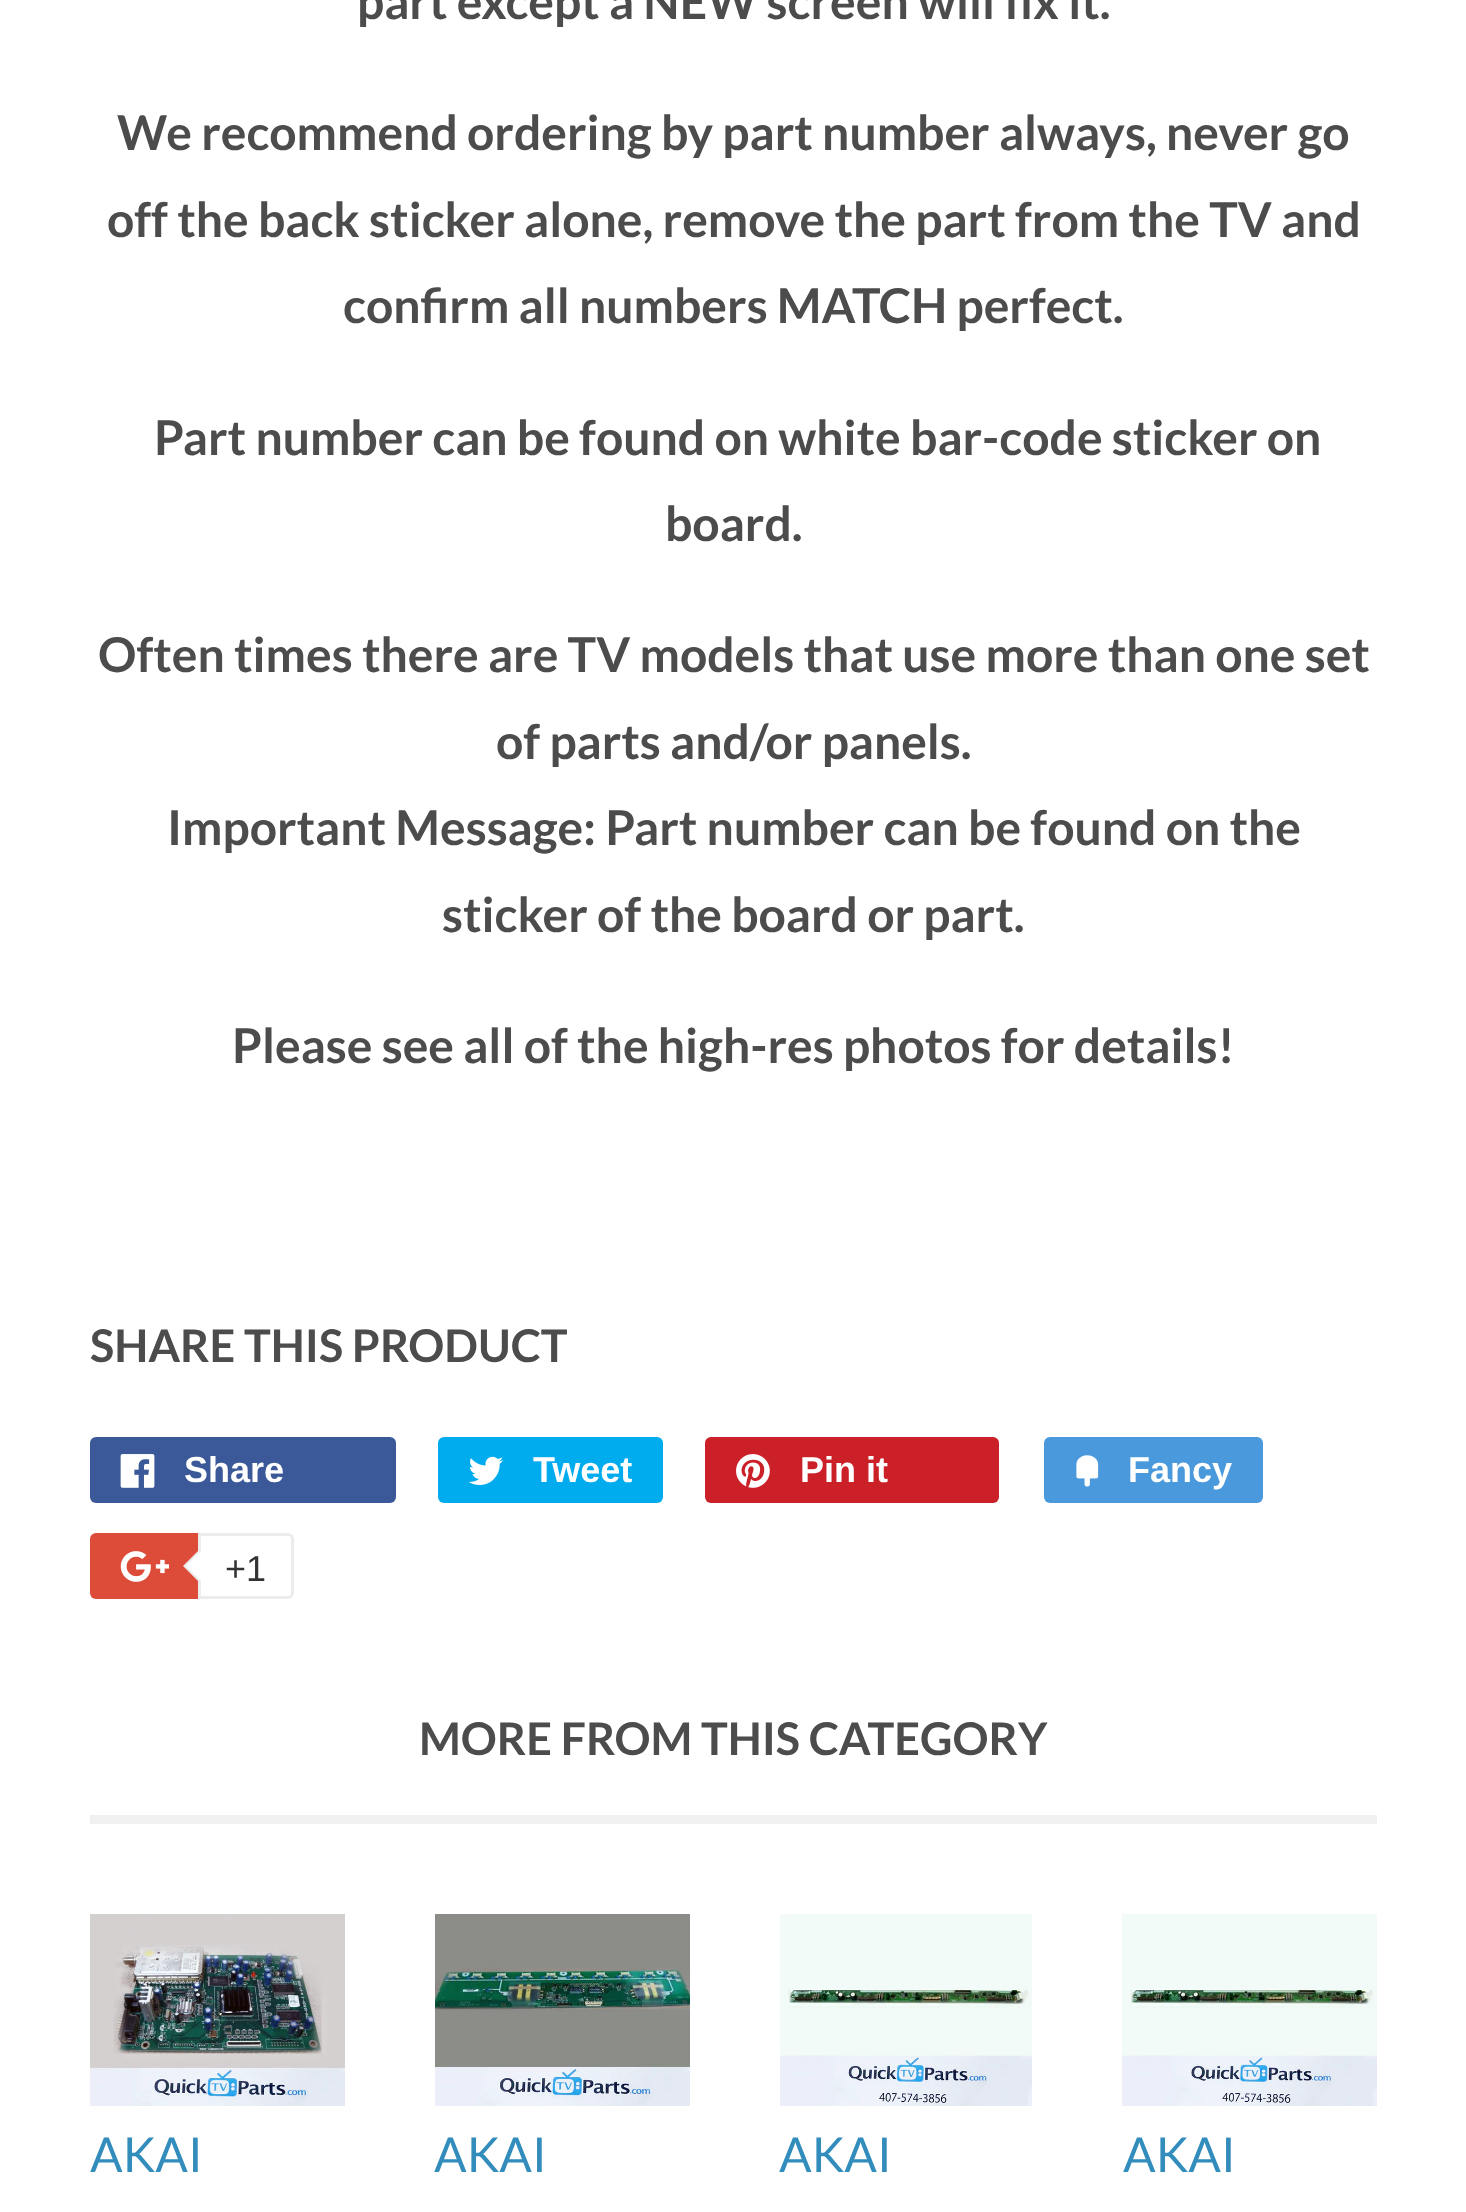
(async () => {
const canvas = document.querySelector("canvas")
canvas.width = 1466
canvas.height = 2212
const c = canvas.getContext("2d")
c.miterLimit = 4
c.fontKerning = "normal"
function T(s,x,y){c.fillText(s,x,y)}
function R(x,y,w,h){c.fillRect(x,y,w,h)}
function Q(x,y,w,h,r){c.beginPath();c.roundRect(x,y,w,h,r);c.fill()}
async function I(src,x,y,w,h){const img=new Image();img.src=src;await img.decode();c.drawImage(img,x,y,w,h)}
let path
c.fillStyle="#fff"
R(0,0,1466,2212)
c.font="bold 48px Lato"
c.fillStyle="#4c4c4c"
T("part except a NEW screen will fix it.",357,19)
T("We recommend ordering by part number always, never go",117,150)
T("off the back sticker alone, remove the part from the TV and",107,237)
T("confirm all numbers MATCH perfect.",343,323)
T("Part number can be found on white bar-code sticker on",154,455)
T("board.",665,541)
T("Often times there are TV models that use more than one set",98,672)
T("of parts and/or panels.",496,759)
T("Important Message: Part number can be found on the",167,845)
T("sticker of the board or part.",442,932)
T("Please see all of the high-res photos for details!",232,1063)
c.font="bold 45px Lato"
T("SHARE THIS PRODUCT",90,1362)
c.fillStyle="#3b5998"
Q(90,1437,306,66,6)
await I("1.png",120,1454,35,34)
c.font="bold 36px Liberation Sans"
c.fillStyle="#fff"
T("Share",184,1482)
c.fillStyle="#00aced"
Q(438,1437,225,66,6)
await I("2.png",468,1456,35,29)
c.fillStyle="#fff"
T("Tweet",533,1482)
c.fillStyle="#cb2027"
Q(705,1437,294,66,6)
await I("3.png",736,1454,34,34)
c.fillStyle="#fff"
T("Pin it",800,1482)
c.fillStyle="#4999dc"
Q(1044,1437,219,66,6)
await I("4.png",1076,1455,23,32)
c.fillStyle="#fff"
T("Fancy",1128,1482)
c.fillStyle="#dd4b39"
Q(90,1533,198,66,6)
await I("5.png",120,1551,49,31)
c.fillStyle="#fff"
c.beginPath()
c.roundRect(199.5,1534.5,93,63,[0,4.5,4.5,0])
c.fill()
c.strokeStyle="#ececec"
c.lineWidth=3
c.stroke()
c.fillStyle="#ececec"
path = new Path2D("M201 1548v36l-18-18z")
c.fill(path)
c.fillStyle="#fff"
path = new Path2D("M204 1548v36l-18-18z")
c.fill(path)
c.font="36px Liberation Sans"
c.fillStyle="#333"
T("+1",225,1581)
c.fillStyle="#f0f0f0"
R(90,1815,1287,9)
c.font="bold 45px Lato"
c.fillStyle="#4c4c4c"
T("MORE FROM THIS CATEGORY",419,1755)
await I("6.png",90,1914,255,192)
c.font="48px Lato"
c.fillStyle="#338dbc"
T("AKAI",90,2172)
await I("7.png",435,1914,255,192)
T("AKAI",434,2172)
await I("8.png",780,1914,252,192)
T("AKAI",779,2172)
await I("9.png",1122,1914,255,192)
T("AKAI",1123,2172)
})()
